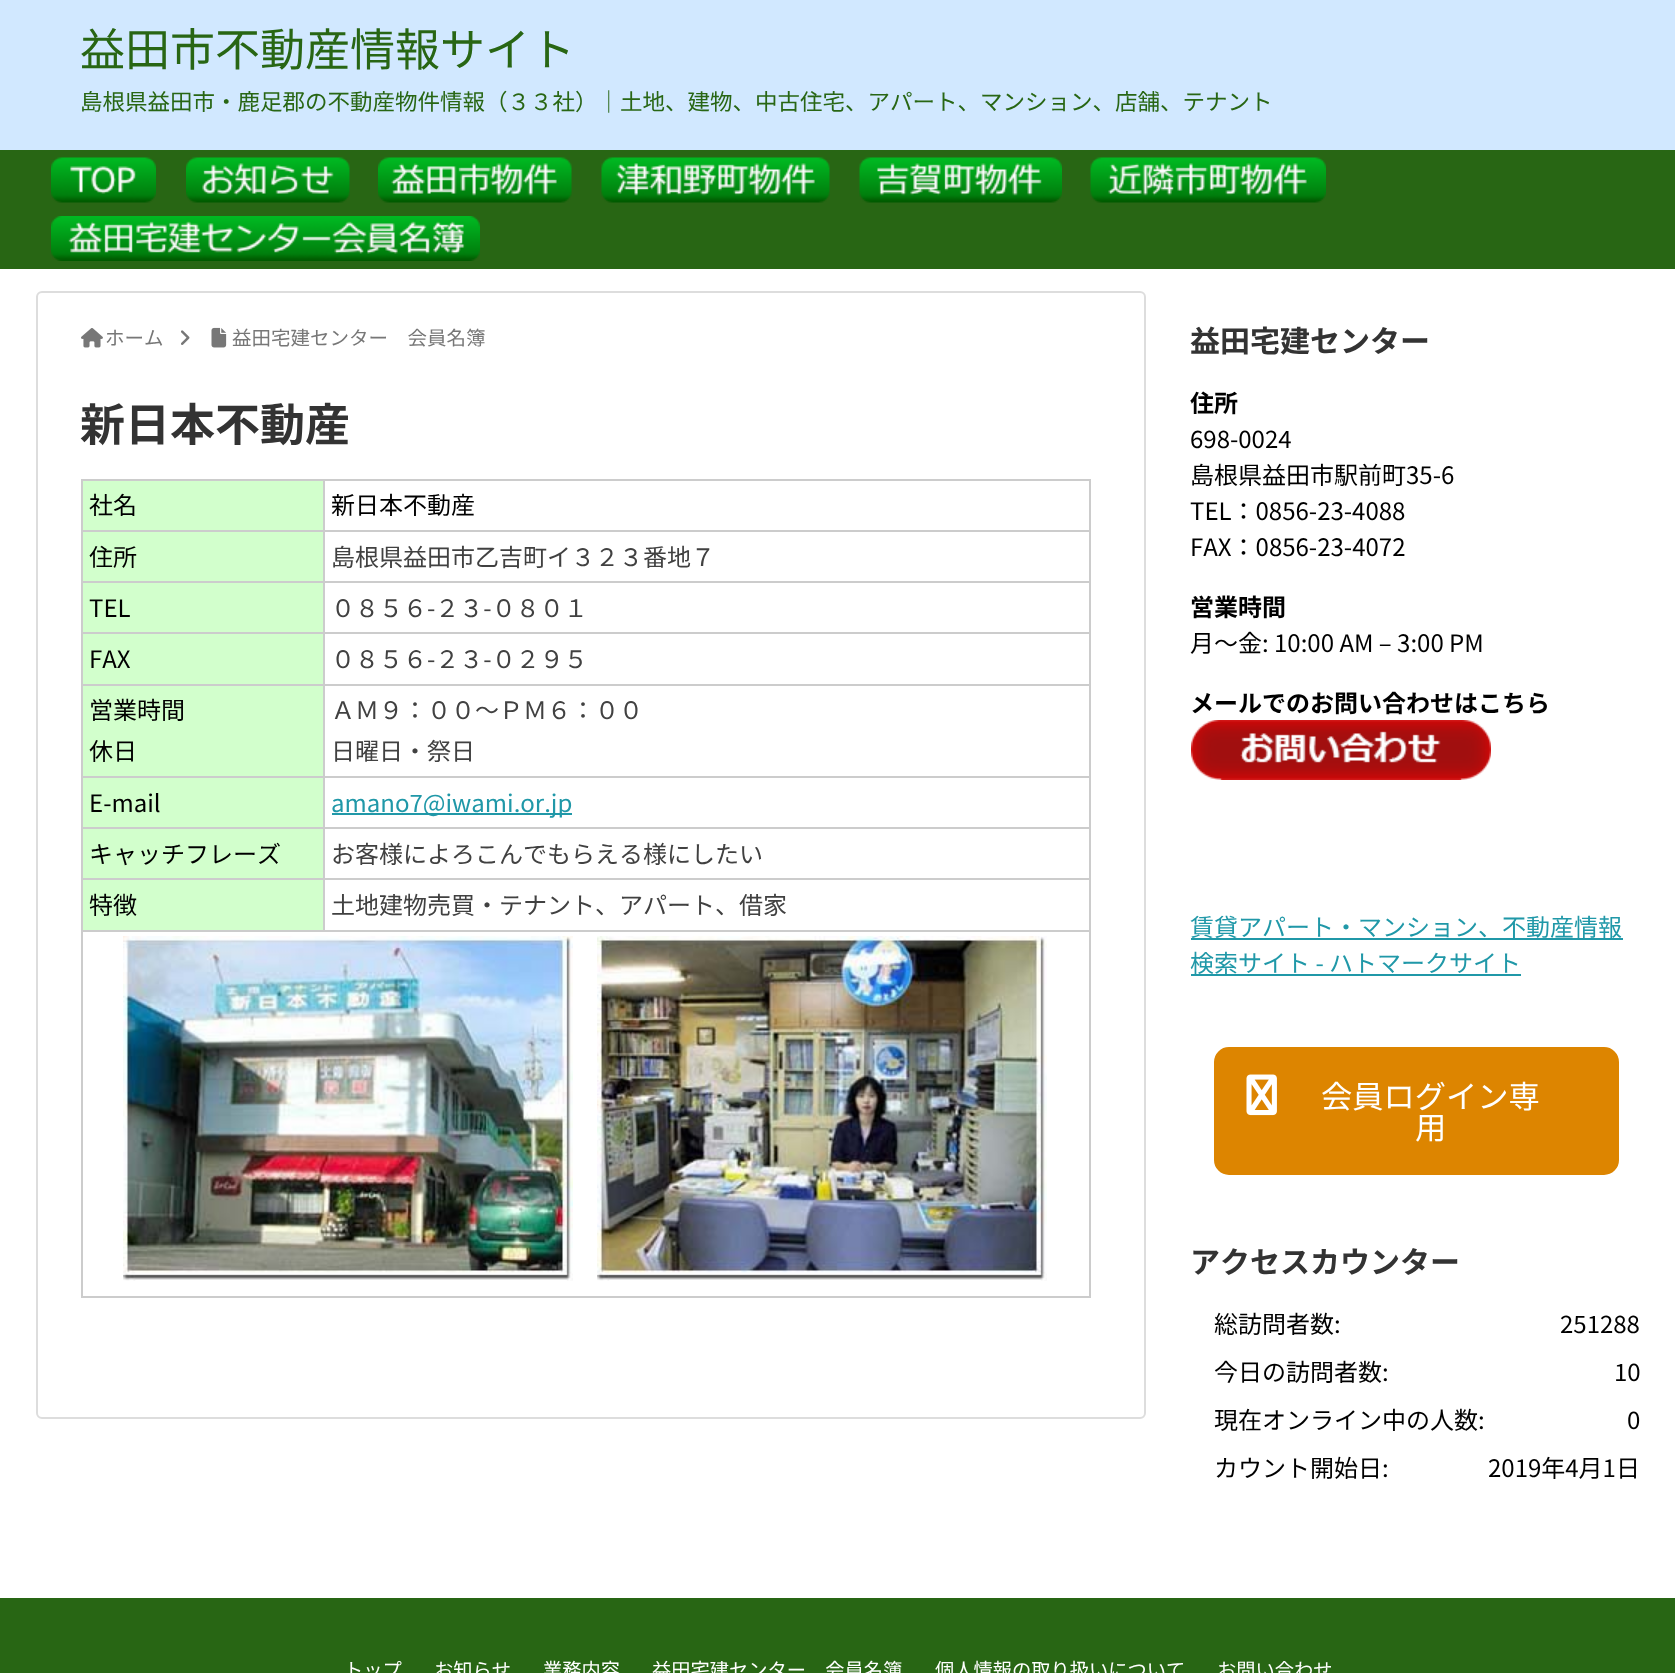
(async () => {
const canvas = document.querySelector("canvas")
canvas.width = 1675
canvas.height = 1673
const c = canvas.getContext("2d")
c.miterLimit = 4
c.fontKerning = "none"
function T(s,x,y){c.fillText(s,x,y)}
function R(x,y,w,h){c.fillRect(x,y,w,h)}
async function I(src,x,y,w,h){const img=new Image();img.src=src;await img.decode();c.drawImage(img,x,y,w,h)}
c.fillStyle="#fff"
R(0,0,1675,1673)
c.fillStyle="#d1e8ff"
R(0,0,1675,150)
c.font="45px Noto Sans JP"
c.fillStyle="#286614"
T("益田市不動産情報サイト",80,66)
c.font="22.5px Noto Sans JP"
T("島根県益田市・鹿足郡の不動産物件情報（３３社）｜土地、建物、中古住宅、アパート、マンション、店舗、テナント",80,110)
R(0,150,1675,119)
await I("1.png",51,157,105,46)
await I("2.png",186,157,164,46)
await I("3.png",378,157,194,46)
await I("4.png",601,157,229,46)
await I("5.png",859,157,203,46)
await I("6.png",1090,157,236,46)
await I("7.png",51,216,429,45)
c.beginPath()
c.roundRect(37,292,1108,1126,5)
c.strokeStyle="#ddd"
c.lineWidth=2
c.stroke()
await I("8.png",81,328,22,20)
c.font="19.5px Noto Sans JP"
c.fillStyle="#777"
T("ホーム",105,345)
await I("9.png",181,330,9,15)
await I("10.png",211,327,16,21)
T("益田宅建センター　会員名簿",232,345)
c.font="bold 45px Noto Sans JP"
c.fillStyle="#333"
T("新日本不動産",80,441)
c.fillStyle="#d2ffcc"
R(83,481,240,49)
c.fillStyle="#ccc"
R(323,479,768,2)
R(323,530,768,2)
R(323,581,768,2)
R(323,632,768,2)
R(323,684,768,2)
R(323,776,768,2)
R(323,827,768,2)
R(323,878,768,2)
R(81,930,1010,2)
R(323,878,2,54)
R(81,878,243,2)
R(323,827,2,52)
R(81,827,243,2)
R(323,776,2,52)
R(81,776,243,2)
R(323,684,2,93)
R(81,684,243,2)
R(323,632,2,54)
R(81,632,243,2)
R(323,581,2,52)
R(81,581,243,2)
R(323,530,2,52)
R(81,530,243,2)
R(323,479,2,52)
R(81,479,243,2)
R(1089,930,2,368)
R(81,1296,1010,2)
R(81,930,2,368)
R(81,878,2,54)
R(81,827,2,52)
R(81,776,2,52)
R(81,684,2,93)
R(81,632,2,54)
R(81,581,2,52)
R(81,530,2,52)
R(81,479,2,52)
c.font="24px Noto Sans JP"
c.fillStyle="#000"
T("社名",89,514)
c.fillStyle="#ccc"
R(1089,878,2,54)
R(1089,827,2,52)
R(1089,776,2,52)
R(1089,684,2,93)
R(1089,632,2,54)
R(1089,581,2,52)
R(1089,530,2,52)
R(1089,479,2,52)
c.fillStyle="#000"
T("新日本不動産",331,514)
c.fillStyle="#d2ffcc"
R(83,532,240,49)
c.fillStyle="#000"
T("住所",89,566)
c.fillStyle="#414141"
T("島根県益田市乙吉町イ３２３番地７",331,566)
c.fillStyle="#d2ffcc"
R(83,583,240,49)
c.fillStyle="#000"
T("TEL",89,617)
c.fillStyle="#414141"
T("０８５６-２３-０８０１",331,617)
c.fillStyle="#d2ffcc"
R(83,634,240,50)
c.fillStyle="#000"
T("FAX",89,668)
c.fillStyle="#414141"
T("０８５６-２３-０２９５",331,668)
c.fillStyle="#d2ffcc"
R(83,686,240,90)
c.fillStyle="#000"
T("営業時間",89,719)
T("休日",89,760)
c.fillStyle="#414141"
T("ＡＭ９：００～ＰＭ６：００",331,719)
T("日曜日・祭日",331,760)
c.fillStyle="#d2ffcc"
R(83,778,240,49)
c.fillStyle="#000"
T("E-mail",89,812)
c.fillStyle="#2098a8"
R(332,813,240,2)
T("amano7@iwami.or.jp",331,812)
c.fillStyle="#d2ffcc"
R(83,829,240,49)
c.fillStyle="#000"
T("キャッチフレーズ",89,863)
c.fillStyle="#414141"
T("お客様によろこんでもらえる様にしたい",331,863)
c.fillStyle="#d2ffcc"
R(83,880,240,50)
c.fillStyle="#000"
T("特徴",89,914)
c.fillStyle="#414141"
T("土地建物売買・テナント、アパート、借家",331,914)
await I("11.png",123,936,450,345)
await I("12.png",597,936,450,345)
c.font="bold 30px Noto Sans JP"
c.fillStyle="#333"
T("益田宅建センター",1190,352)
c.font="bold 24px Noto Sans JP"
c.fillStyle="#000"
T("住所",1190,412)
c.font="24px Noto Sans JP"
T("698-0024",1190,448)
T("島根県益田市駅前町35-6",1190,484)
T("TEL：0856-23-4088",1190,520)
T("FAX：0856-23-4072",1190,556)
c.font="bold 24px Noto Sans JP"
T("営業時間",1190,616)
c.font="24px Noto Sans JP"
T("月〜金: 10:00 AM – 3:00 PM",1190,652)
c.font="bold 24px Noto Sans JP"
T("メールでのお問い合わせはこちら",1190,712)
await I("13.png",1191,720,300,60)
c.font="24px Noto Sans JP"
c.fillStyle="#2098a8"
T("賃貸アパート・マンション、不動産情報",1190,936)
R(1191,938,432,2)
T("検索サイト - ハトマークサイト",1190,972)
R(1191,974,330,2)
c.fillStyle="#dd8500"
c.beginPath()
c.roundRect(1215,1048,403,126,14)
c.fill()
c.strokeStyle="#dd8500"
c.stroke()
await I("14.png",1246,1074,31,42)
c.font="31.25px Noto Sans JP"
c.fillStyle="#fff"
T("会員ログイン専",1321,1108)
T("用",1415,1139)
c.font="bold 30px Noto Sans JP"
c.fillStyle="#333"
T("アクセスカウンター",1190,1273)
c.font="24px Noto Sans JP"
c.fillStyle="#000"
T("総訪問者数:",1214,1333)
T("251288",1560,1333)
T("今日の訪問者数:",1214,1381)
T("10",1614,1381)
T("現在オンライン中の人数:",1214,1429)
T("0",1627,1429)
T("カウント開始日:",1214,1477)
T("2019年4月1日",1488,1477)
c.fillStyle="#286614"
R(0,1598,1675,75)
c.font="19.25px Noto Sans JP"
c.fillStyle="#fff"
T("トップ",344,1677)
T("お知らせ",434,1677)
T("業務内容",543,1677)
T("益田宅建センター　会員名簿",652,1677)
T("個人情報の取り扱いについて",935,1677)
T("お問い合わせ",1217,1677)
})()
